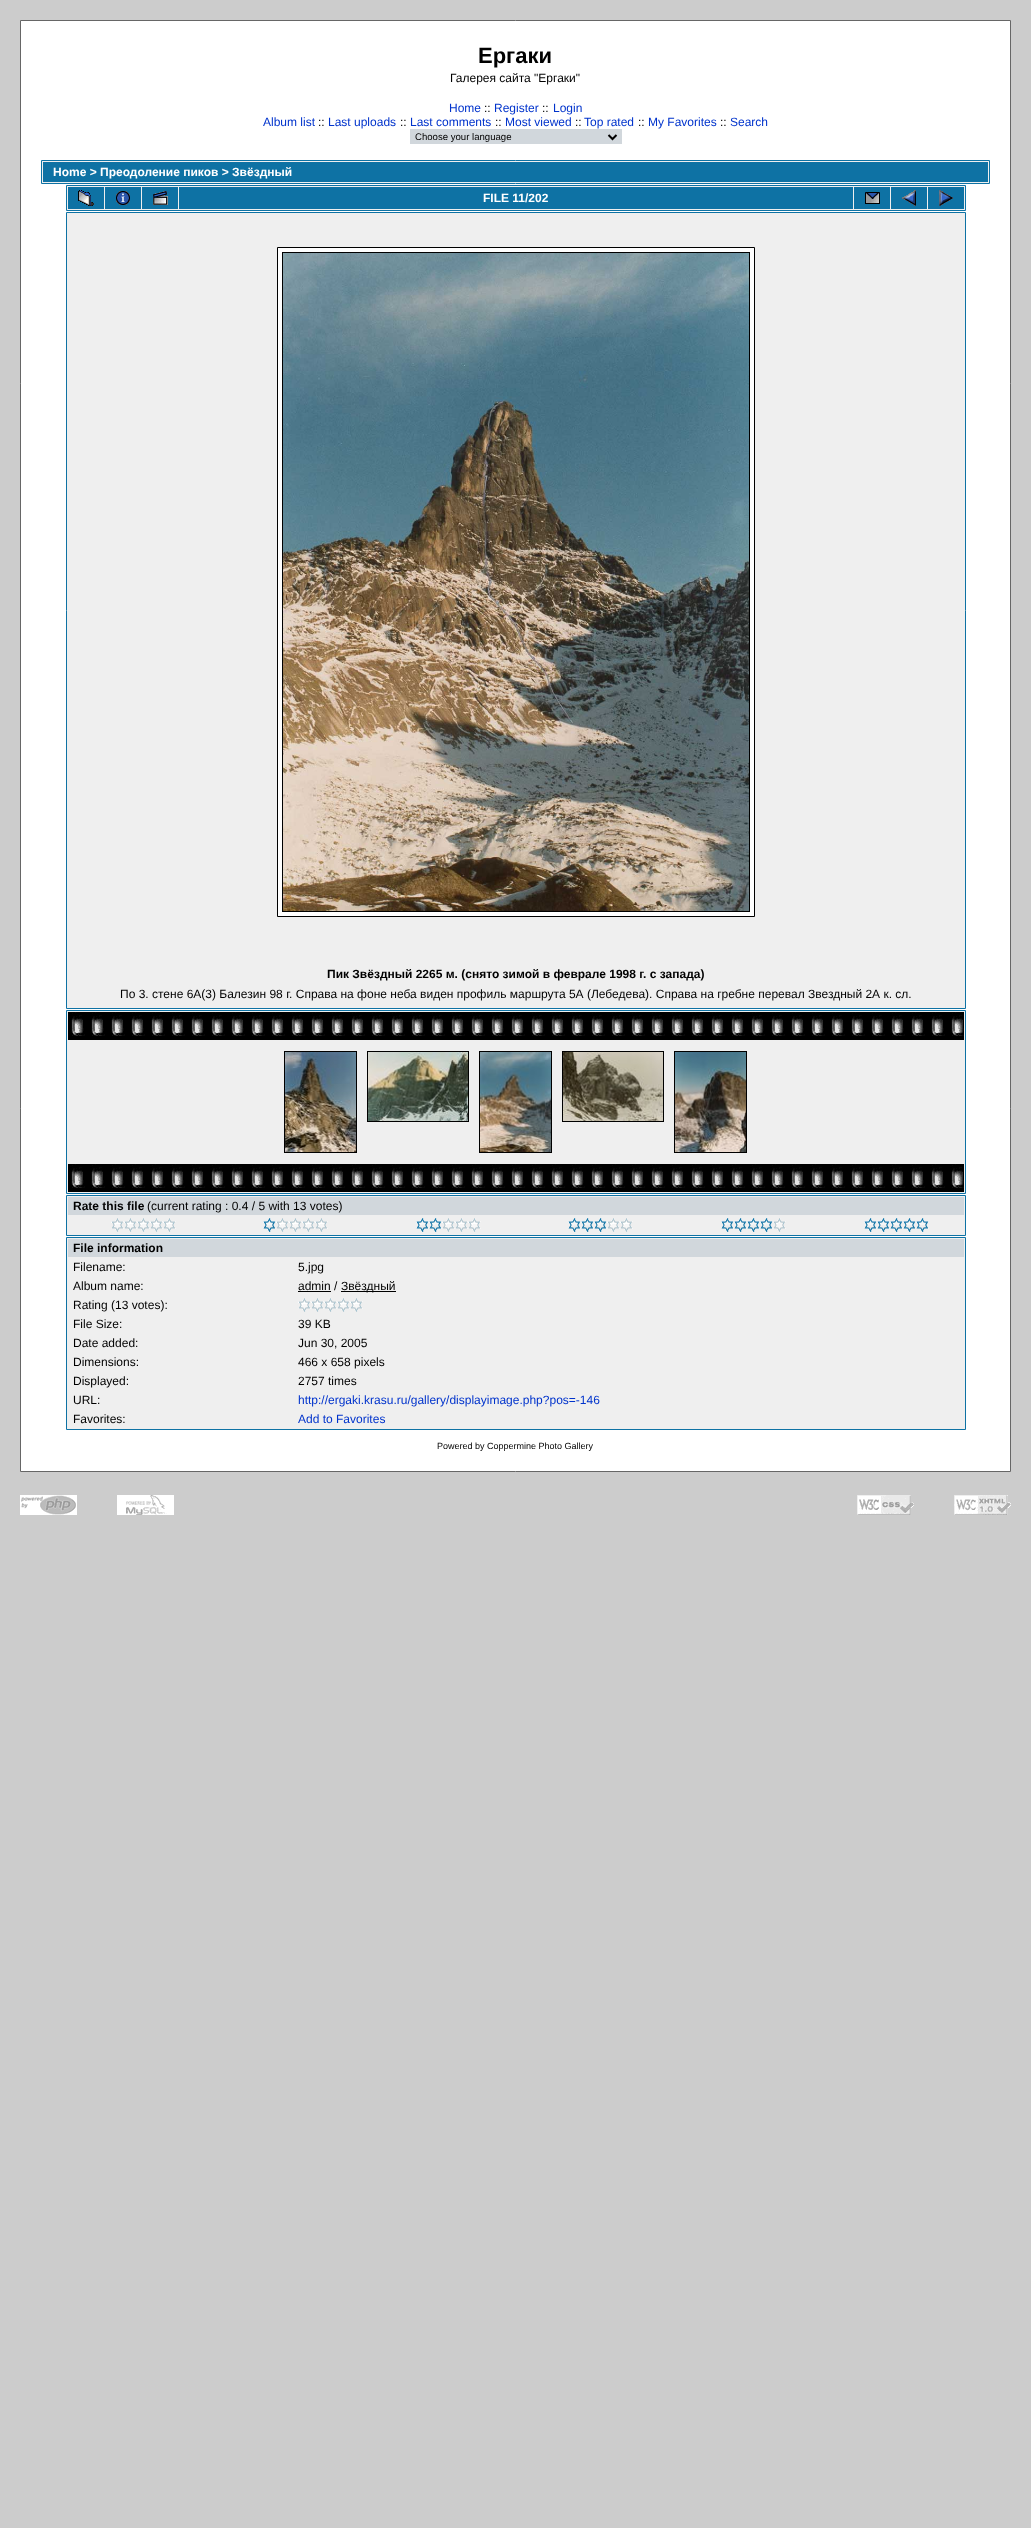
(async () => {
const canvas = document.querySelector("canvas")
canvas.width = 1031
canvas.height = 2528
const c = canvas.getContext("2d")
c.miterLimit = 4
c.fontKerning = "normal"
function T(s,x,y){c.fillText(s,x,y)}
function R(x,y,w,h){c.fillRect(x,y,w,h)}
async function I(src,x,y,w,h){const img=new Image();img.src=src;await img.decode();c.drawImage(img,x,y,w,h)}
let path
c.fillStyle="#ccc"
R(0,0,1031,2528)
c.fillStyle="#fff"
c.beginPath()
c.rect(20.5,20.5,990,1451)
c.fill()
c.strokeStyle="#666"
c.stroke()
c.font="bold 22px Liberation Sans"
c.fillStyle="#000"
T("Ергаки",478,63)
c.font="12px Liberation Sans"
T("Галерея сайта \"Ергаки\"",450,82)
c.fillStyle="#03c"
T("Home",449,112)
c.fillStyle="#000"
T("::",484,112)
c.fillStyle="#03c"
T("Register",494,112)
c.fillStyle="#000"
T("::",542,112)
c.fillStyle="#03c"
T("Login",553,112)
T("Album list",263,126)
c.fillStyle="#000"
T("::",318,126)
c.fillStyle="#03c"
T("Last uploads",328,126)
c.fillStyle="#000"
T("::",400,126)
c.fillStyle="#03c"
T("Last comments",410,126)
c.fillStyle="#000"
T("::",495,126)
c.fillStyle="#03c"
T("Most viewed",505,126)
c.fillStyle="#000"
T("::",575,126)
c.fillStyle="#03c"
T("Top rated",584,126)
c.fillStyle="#000"
T("::",638,126)
c.fillStyle="#03c"
T("My Favorites",648,126)
c.fillStyle="#000"
T("::",720,126)
c.fillStyle="#03c"
T("Search",730,126)
c.fillStyle="#d1d7dc"
R(410,129,212,15)
path = new Path2D("M608.5 135l4 4l4-4")
c.strokeStyle="#000"
c.lineWidth=2
c.stroke(path)
c.font="9.6px Liberation Sans"
c.fillStyle="#000"
T("Choose your language",415,140)
c.fillStyle="#efefef"
c.beginPath()
c.rect(41.5,160.5,948,23)
c.fill()
c.strokeStyle="#0e72a4"
c.lineWidth=1
c.stroke()
c.fillStyle="#0e72a4"
R(43,162,945,20)
c.font="bold 12px Liberation Sans"
c.fillStyle="#fff"
T("Home > Преодоление пиков > Звёздный",53,176)
c.fillStyle="#efefef"
c.beginPath()
c.rect(66.5,185.5,899,25)
c.fill()
c.stroke()
c.fillStyle="#0e72a4"
R(68,187,36,22)
await I("1.png",78,190,16,16)
R(105,187,36,22)
await I("2.png",116,191,14,14)
R(142,187,36,22)
await I("3.png",153,191,15,14)
R(179,187,674,22)
c.fillStyle="#fff"
T("FILE 11/202",483,202)
c.fillStyle="#0e72a4"
R(854,187,36,22)
await I("4.png",865,192,15,12)
R(891,187,36,22)
await I("5.png",902,190,14,16)
R(928,187,36,22)
await I("6.png",939,190,14,16)
c.fillStyle="#efefef"
c.beginPath()
c.rect(66.5,212.5,899,796)
c.fill()
c.stroke()
c.fillStyle="#fff"
c.beginPath()
c.rect(277.5,247.5,477,669)
c.fill()
c.strokeStyle="#000"
c.stroke()
c.strokeRect(282.5,252.5,467,659)
await I("7.png",283,253,466,658)
c.fillStyle="#000"
T("Пик Звёздный 2265 м. (снято зимой в феврале 1998 г. с запада)",327,978)
c.font="12px Liberation Sans"
T("По 3. стене 6А(3) Балезин 98 г. Справа на фоне неба виден профиль маршрута 5А (Лебедева). Справа на гребне перевал Звездный 2А к. сл.",120,998)
c.fillStyle="#efefef"
c.beginPath()
c.rect(66.5,1010.5,899,183)
c.fill()
c.strokeStyle="#0e72a4"
c.stroke()
await I("8.png",68,1012,896,28)
c.strokeStyle="#000"
c.strokeRect(284.5,1051.5,72,101)
await I("9.png",285,1052,71,100)
c.strokeRect(367.5,1051.5,101,70)
await I("10.png",368,1052,100,69)
c.strokeRect(479.5,1051.5,72,101)
await I("11.png",480,1052,71,100)
c.strokeRect(562.5,1051.5,101,70)
await I("12.png",563,1052,100,69)
c.strokeRect(674.5,1051.5,72,101)
await I("13.png",675,1052,71,100)
await I("8.png",68,1164,896,28)
c.beginPath()
c.rect(66.5,1195.5,899,40)
c.fill()
c.strokeStyle="#0e72a4"
c.stroke()
c.fillStyle="#d1d7dc"
R(68,1197,896,18)
c.font="bold 12px Liberation Sans"
c.fillStyle="#000"
T("Rate this file",73,1210)
c.font="12px Liberation Sans"
T("(current rating : 0.4 / 5 with 13 votes)",147,1210)
await I("14.png",111,1218,65,14)
await I("15.png",263,1218,65,14)
await I("16.png",416,1218,65,14)
await I("17.png",568,1218,65,14)
await I("18.png",721,1218,65,14)
await I("19.png",864,1218,65,14)
c.fillStyle="#efefef"
c.beginPath()
c.rect(66.5,1237.5,899,192)
c.fill()
c.stroke()
c.fillStyle="#d1d7dc"
R(68,1239,896,18)
c.font="bold 12px Liberation Sans"
c.fillStyle="#000"
T("File information",73,1252)
c.font="12px Liberation Sans"
T("Filename:",73,1271)
T("5.jpg",298,1271)
T("Album name:",73,1290)
T("admin /",298,1290)
R(298,1291,33,1)
R(341,1291,55,1)
T("Звёздный",341,1290)
T("Rating (13 votes):",73,1309)
await I("14.png",298,1298,65,14)
T("File Size:",73,1328)
T("39 KB",298,1328)
T("Date added:",73,1347)
T("Jun 30, 2005",298,1347)
T("Dimensions:",73,1366)
T("466 x 658 pixels",298,1366)
T("Displayed:",73,1385)
T("2757 times",298,1385)
T("URL:",73,1404)
c.fillStyle="#03c"
T("http://ergaki.krasu.ru/gallery/displayimage.php?pos=-146",298,1404)
c.fillStyle="#000"
T("Favorites:",73,1423)
c.fillStyle="#03c"
T("Add to Favorites",298,1423)
c.font="9px Liberation Sans"
c.fillStyle="#000"
T("Powered by Coppermine Photo Gallery",437,1449)
await I("20.png",20,1495,57,20)
await I("21.png",117,1495,57,20)
await I("22.png",857,1495,57,20)
await I("23.png",954,1495,57,20)
})()
